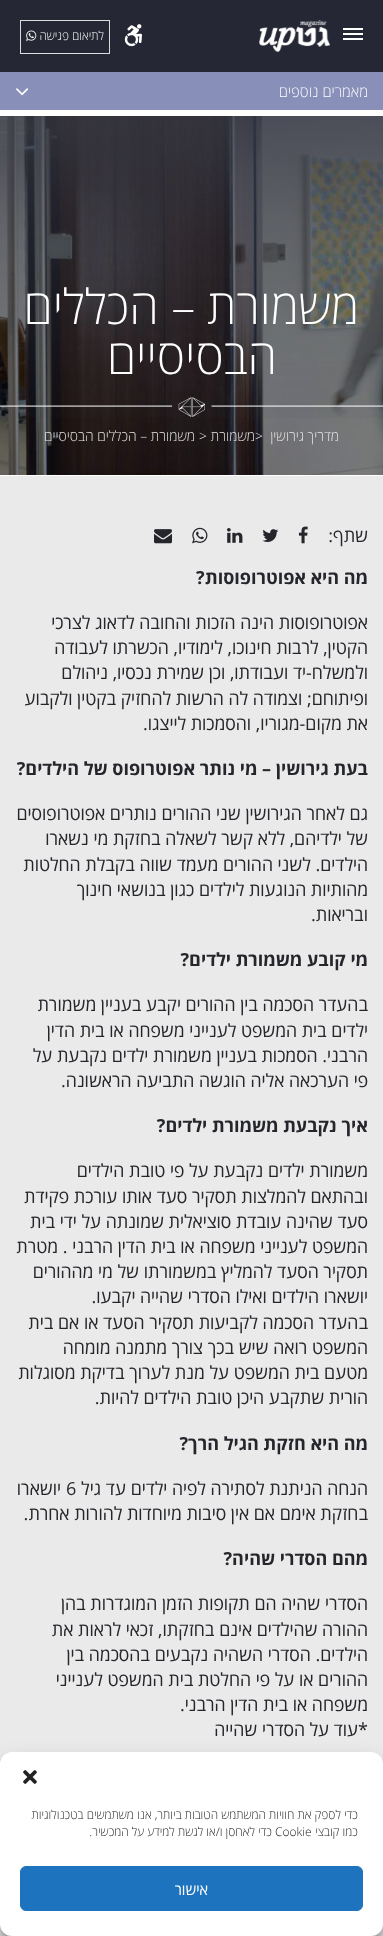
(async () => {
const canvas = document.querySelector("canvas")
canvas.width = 383
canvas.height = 1936
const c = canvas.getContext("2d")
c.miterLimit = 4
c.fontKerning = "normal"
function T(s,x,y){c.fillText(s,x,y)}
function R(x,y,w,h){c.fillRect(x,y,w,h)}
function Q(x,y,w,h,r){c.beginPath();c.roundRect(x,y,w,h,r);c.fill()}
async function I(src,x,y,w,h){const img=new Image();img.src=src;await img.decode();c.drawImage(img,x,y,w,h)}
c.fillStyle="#fff"
R(0,0,383,1936)
c.fillStyle="#252734"
R(0,0,383,72)
c.fillStyle="#fff"
R(343,28,20,2)
R(343,33,20,2)
R(343,38,20,2)
await I("1.png",259,20,71,32)
await I("2.png",124,24,18,23)
c.strokeStyle="#dbdcdb"
c.strokeRect(20.5,20.5,89,33)
c.direction="rtl"
c.font="300 12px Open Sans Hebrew"
T("לתיאום פגישה",104,40)
await I("3.png",26,30,11,11)
c.fillStyle="#888fb9"
R(0,72,383,38)
c.font="300 15px Open Sans Hebrew"
c.fillStyle="#fff"
T("מאמרים נוספים",368,97)
await I("4.png",16,88,13,8)
await I("5.png",0,116,383,359)
await I("6.png",0,116,383,302)
c.font="300 48px Open Sans Hebrew"
T("משמורת – הכללים",359,324)
T("הבסיסיים",277,374)
await I("7.png",0,397,383,20)
c.font="300 14px Open Sans Hebrew"
c.fillStyle="#e9e9ea"
T("מדריך גירושין",339,441)
c.direction="ltr"
T(">",255,441)
c.direction="rtl"
T("משמורת",255,441)
c.direction="ltr"
T(">",199,441)
c.direction="rtl"
T("משמורת – הכללים הבסיסיים",195,441)
c.fillStyle="#eaeaea"
R(0,476,383,1460)
c.font="18px Open Sans Hebrew"
c.fillStyle="#25262b"
T("שתף:",368,542)
await I("8.png",298,526,10,18)
await I("9.png",262,529,17,13)
await I("10.png",227,528,16,15)
await I("11.png",192,527,16,17)
await I("12.png",154,529,18,15)
c.font="bold 18px Open Sans Hebrew"
T("מה היא",368,584)
T("אפוטרופוסות",306,584)
c.direction="ltr"
T("?",196,584)
c.direction="rtl"
c.font="18px Open Sans Hebrew"
T("אפוטרופוסות הינה הזכות והחובה לדאוג לצרכי",368,629)
T("הקטין, לרבות חינוכו, לימודיו, הכשרתו לעבודה",368,654)
T("ולמשלח-יד ועבודתו, וכן שמירת נכסיו, ניהולם",368,679)
T("ופיתוחם; וצמודה לה הרשות להחזיק בקטין ולקבוע",368,705)
T("את מקום-מגוריו, והסמכות לייצגו.",368,730)
c.font="bold 18px Open Sans Hebrew"
T("בעת גירושין – מי נותר אפוטרופוס של הילדים?",368,775)
c.font="18px Open Sans Hebrew"
T("גם לאחר הגירושין שני ההורים נותרים אפוטרופוסים",368,820)
T("של ילדיהם, ללא קשר לשאלה בחזקת מי נשארו",368,845)
T("הילדים. לשני ההורים מעמד שווה בקבלת החלטות",368,871)
T("מהותיות הנוגעות לילדים כגון בנושאי חינוך",368,896)
T("ובריאות.",368,921)
c.font="bold 18px Open Sans Hebrew"
T("מי קובע משמורת ילדים?",368,966)
c.font="18px Open Sans Hebrew"
T("בהעדר הסכמה בין ההורים יקבע בעניין משמורת",368,1011)
T("ילדים בית המשפט לענייני משפחה או בית הדין",368,1037)
T("הרבני. הסמכות בעניין משמורת ילדים נקבעת על",368,1062)
T("פי הערכאה אליה הוגשה התביעה הראשונה.",368,1087)
c.font="bold 18px Open Sans Hebrew"
T("איך נקבעת משמורת ילדים?",368,1132)
c.font="18px Open Sans Hebrew"
T("משמורת ילדים נקבעת על פי טובת הילדים",368,1177)
T("ובהתאם להמלצות תסקיר סעד אותו עורכת פקידת",368,1203)
T("סעד שהינה עובדת סוציאלית שמונתה על ידי בית",368,1228)
T("המשפט לענייני משפחה או בית הדין הרבני . מטרת",368,1253)
T("תסקיר הסעד להמליץ במשמורתו של מי מההורים",368,1278)
T("יושארו הילדים ואילו הסדרי שהייה יקבעו.",368,1303)
T("בהעדר הסכמה לקביעות תסקיר הסעד או אם בית",368,1329)
T("המשפט רואה שיש בכך צורך מתמנה מומחה",368,1354)
T("מטעם בית המשפט על מנת לערוך בדיקת מסוגלות",368,1379)
T("הורית שתקבע היכן טובת הילדים להיות.",368,1404)
c.font="bold 18px Open Sans Hebrew"
T("מה היא חזקת הגיל הרך?",368,1450)
c.font="18px Open Sans Hebrew"
T("הנחה הניתנת לסתירה לפיה ילדים עד גיל",368,1495)
c.direction="ltr"
T("6",66,1495)
c.direction="rtl"
T("יושארו",61,1495)
T("בחזקת אימם אם אין סיבות מיוחדות להורות אחרת.",368,1520)
c.font="bold 18px Open Sans Hebrew"
T("מהם הסדרי שהיה?",368,1565)
c.font="18px Open Sans Hebrew"
T("הסדרי שהיה הם תקופות הזמן המוגדרות בהן",368,1610)
T("ההורה שהילדים אינם בחזקתו, זכאי לראות את",368,1636)
T("הילדים. הסדרי השהיה נקבעים בהסכמה בין",368,1661)
T("ההורים או על פי החלטת בית המשפט לענייני",368,1686)
T("משפחה או בית הדין הרבני.",368,1711)
T("*עוד על",368,1736)
T("הסדרי שהייה",305,1736)
c.fillStyle="#0000003b"
c.filter="blur(3px)"
c.beginPath()
c.roundRect(0,1758,383,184,12)
c.fill()
c.filter="none"
c.fillStyle="#00000030"
c.filter="blur(10px)"
c.beginPath()
c.roundRect(0,1762,383,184,12)
c.fill()
c.filter="none"
c.fillStyle="#fff"
Q(0,1752,383,184,12)
await I("13.png",23,1770,14,14)
c.font="300 12px Open Sans Hebrew"
c.fillStyle="#222"
T("כדי לספק את חוויות המשתמש הטובות ביותר, אנו משתמשים בטכנולוגיות",358,1819)
T("כמו קובצי",358,1836)
c.direction="ltr"
T("Cookie",275,1836)
c.direction="rtl"
T("כדי לאחסן ו/או לגשת למידע על המכשיר.",272,1836)
c.fillStyle="#1e73be"
c.beginPath()
c.roundRect(20.5,1866.5,342,44,5.5)
c.fill()
c.strokeStyle="#1e73be"
c.stroke()
c.font="15px Open Sans Hebrew"
c.fillStyle="#fff"
T("אישור",208,1895)
})()
